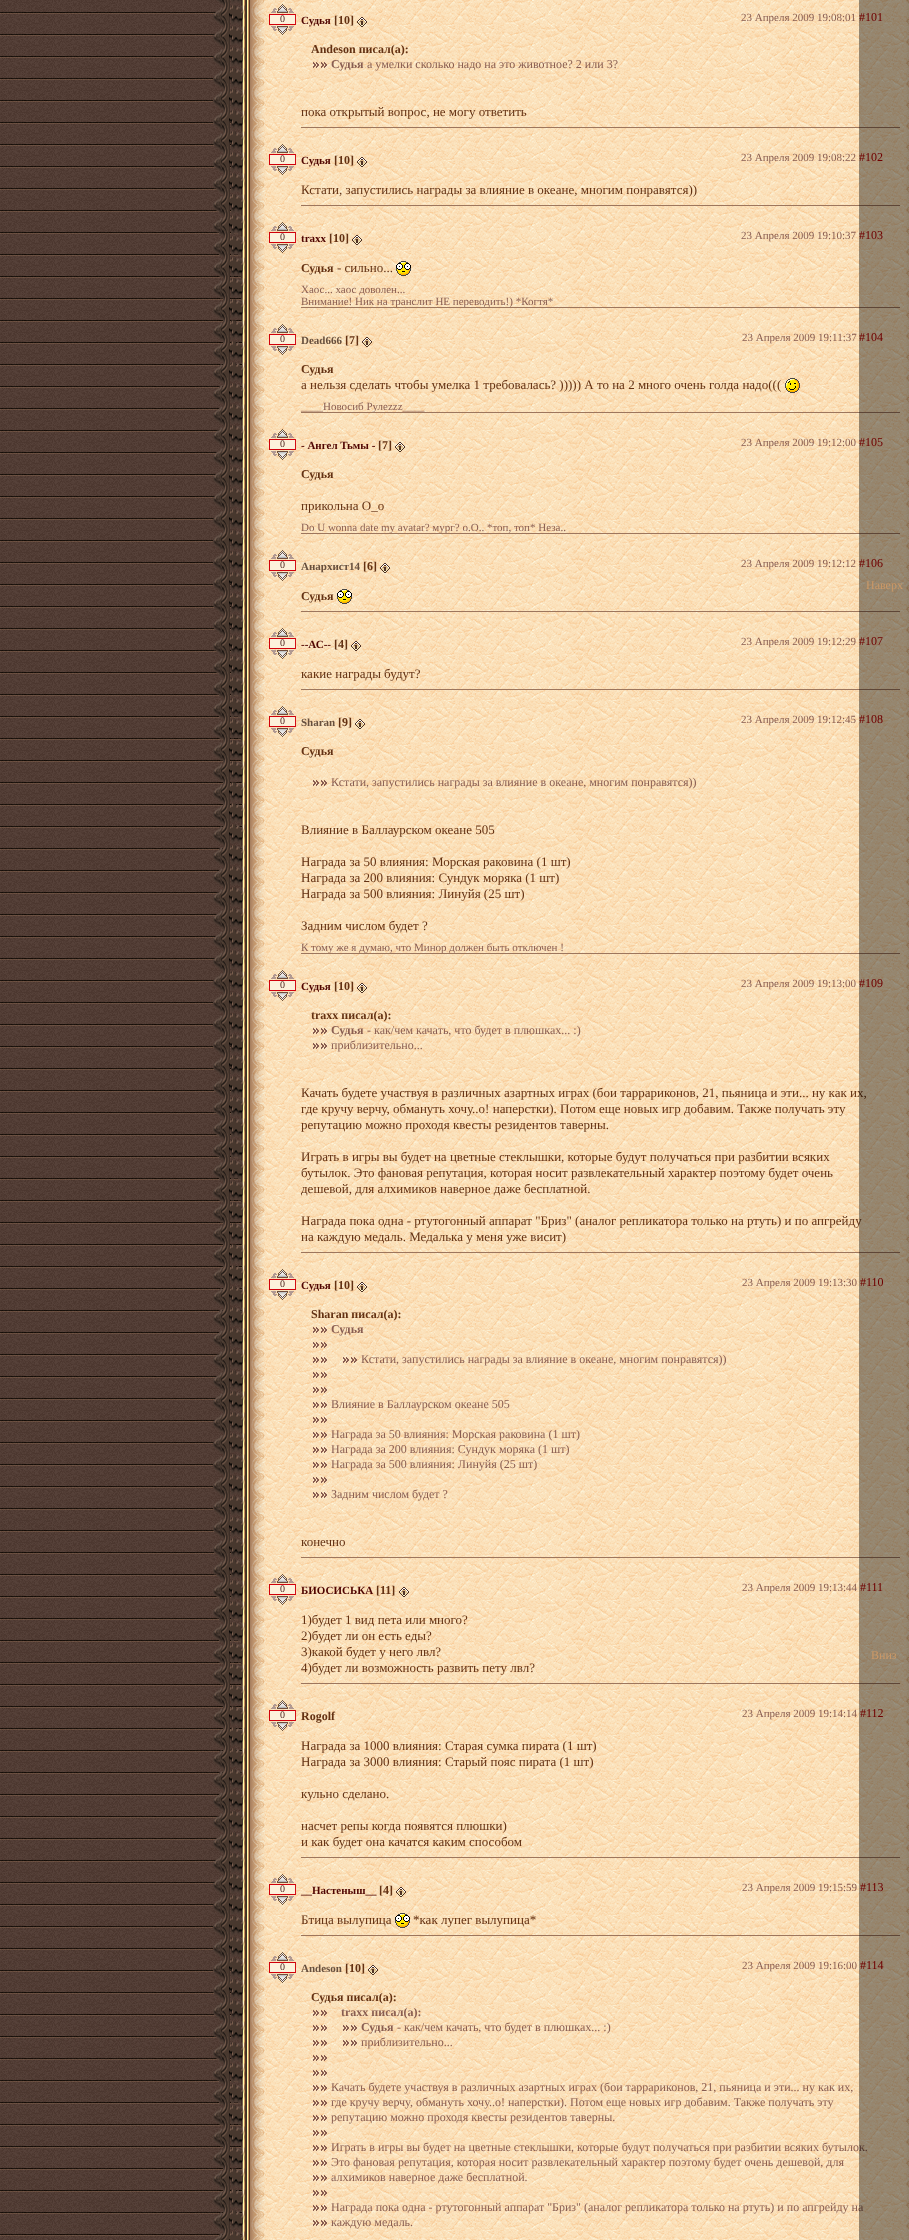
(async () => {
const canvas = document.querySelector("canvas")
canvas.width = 909
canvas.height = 2240
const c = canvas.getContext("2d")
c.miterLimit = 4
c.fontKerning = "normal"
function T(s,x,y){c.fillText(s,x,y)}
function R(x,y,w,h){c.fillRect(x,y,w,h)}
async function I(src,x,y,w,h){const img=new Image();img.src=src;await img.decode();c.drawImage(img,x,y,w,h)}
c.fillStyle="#fff"
R(0,0,909,2240)
await I("1.png",0,0,242,2240)
await I("2.png",213,0,37,2240)
await I("3.png",250,0,15,2240)
await I("4.png",265,0,639,2240)
await I("5.png",269,8,27,23)
await I("6.png",277,4,11,9)
c.font="10px Liberation Serif"
c.fillStyle="#512924"
T("0",280,22)
await I("7.png",277,26,11,9)
c.font="bold 11px Liberation Serif"
c.fillStyle="#4f0401"
T("Судья",301,24)
c.font="bold 12px Liberation Serif"
c.fillStyle="#633113"
T("[10]",334,24)
await I("8.png",357,17,10,10)
c.font="11px Liberation Serif"
c.fillStyle="#895d51"
T("23 Апреля 2009 19:08:01",741,21)
c.font="12px Liberation Serif"
c.fillStyle="#ba0000"
T("#101",859,21)
c.font="bold 12px Liberation Serif"
c.fillStyle="#633113"
T("Andeson писал(а):",311,53)
await I("9.png",313,62,14,6)
c.fillStyle="#895d51"
T("Судья",331,68)
c.font="12px Liberation Serif"
T("а умелки сколько надо на это животное? 2 или 3?",367,68)
c.font="13px Liberation Serif"
c.fillStyle="#633113"
T("пока открытый вопрос, не могу ответить",301,116)
c.fillStyle="#9d765d"
R(301,127,599,1)
await I("10.png",269,148,27,23)
await I("11.png",277,144,11,9)
c.font="10px Liberation Serif"
c.fillStyle="#512924"
T("0",280,162)
await I("12.png",277,166,11,9)
c.font="bold 11px Liberation Serif"
c.fillStyle="#4f0401"
T("Судья",301,164)
c.font="bold 12px Liberation Serif"
c.fillStyle="#633113"
T("[10]",334,164)
await I("13.png",357,157,10,10)
c.font="11px Liberation Serif"
c.fillStyle="#895d51"
T("23 Апреля 2009 19:08:22",741,161)
c.font="12px Liberation Serif"
c.fillStyle="#ba0000"
T("#102",859,161)
c.font="13px Liberation Serif"
c.fillStyle="#633113"
T("Кстати, запустились награды за влияние в океане, многим понравятся))",301,194)
c.fillStyle="#9d765d"
R(301,205,599,1)
await I("14.png",269,226,27,23)
await I("15.png",277,222,11,9)
c.font="10px Liberation Serif"
c.fillStyle="#512924"
T("0",280,240)
await I("16.png",277,244,11,9)
c.font="bold 11px Liberation Serif"
c.fillStyle="#4f0401"
T("traxx",301,242)
c.font="bold 12px Liberation Serif"
c.fillStyle="#633113"
T("[10]",329,242)
await I("17.png",352,235,10,10)
c.font="11px Liberation Serif"
c.fillStyle="#895d51"
T("23 Апреля 2009 19:10:37",741,239)
c.font="12px Liberation Serif"
c.fillStyle="#ba0000"
T("#103",859,239)
c.font="bold 12px Liberation Serif"
c.fillStyle="#633113"
T("Судья",301,272)
c.font="13px Liberation Serif"
T("- сильно...",337,272)
await I("18.png",396,261,15,15)
c.font="11px Liberation Serif"
c.fillStyle="#895d51"
T("Хаос... хаос доволен...",301,293)
T("Внимание! Ник на транслит НЕ переводить!) *Когтя*",301,305)
c.fillStyle="#9d765d"
R(301,307,599,1)
await I("10.png",269,328,27,23)
await I("11.png",277,324,11,9)
c.font="10px Liberation Serif"
c.fillStyle="#512924"
T("0",280,342)
await I("12.png",277,346,11,9)
c.font="bold 11px Liberation Serif"
c.fillStyle="#674f3d"
T("Dead666",301,344)
c.font="bold 12px Liberation Serif"
c.fillStyle="#633113"
T("[7]",345,344)
await I("19.png",362,337,10,10)
c.font="11px Liberation Serif"
c.fillStyle="#895d51"
T("23 Апреля 2009 19:11:37",742,341)
c.font="12px Liberation Serif"
c.fillStyle="#ba0000"
T("#104",859,341)
c.font="bold 12px Liberation Serif"
c.fillStyle="#633113"
T("Судья",301,373)
c.font="13px Liberation Serif"
T("а нельзя сделать чтобы умелка 1 требовалась? ))))) А то на 2 много очень голда надо(((",301,389)
await I("20.png",785,378,15,15)
c.font="11px Liberation Serif"
c.fillStyle="#895d51"
T("____Новосиб Рулеzzz____",301,410)
c.fillStyle="#9d765d"
R(301,412,599,1)
await I("21.png",269,433,27,23)
await I("22.png",277,429,11,9)
c.font="10px Liberation Serif"
c.fillStyle="#512924"
T("0",280,447)
await I("23.png",277,451,11,9)
c.font="bold 11px Liberation Serif"
c.fillStyle="#4f0401"
T("- Ангел Тьмы -",301,449)
c.font="bold 12px Liberation Serif"
c.fillStyle="#633113"
T("[7]",378,449)
await I("24.png",395,442,10,10)
c.font="11px Liberation Serif"
c.fillStyle="#895d51"
T("23 Апреля 2009 19:12:00",741,446)
c.font="12px Liberation Serif"
c.fillStyle="#ba0000"
T("#105",859,446)
c.font="bold 12px Liberation Serif"
c.fillStyle="#633113"
T("Судья",301,478)
c.font="13px Liberation Serif"
T("прикольна О_о",301,510)
c.font="11px Liberation Serif"
c.fillStyle="#895d51"
T("Do U wоnna date my avatar? мург? о.О.. *топ, топ* Неза..",301,531)
c.fillStyle="#9d765d"
R(301,533,599,1)
await I("25.png",269,554,27,23)
await I("26.png",277,550,11,9)
c.font="10px Liberation Serif"
c.fillStyle="#512924"
T("0",280,568)
await I("27.png",277,572,11,9)
c.font="bold 11px Liberation Serif"
c.fillStyle="#674f3d"
T("Анархист14",301,570)
c.font="bold 12px Liberation Serif"
c.fillStyle="#633113"
T("[6]",363,570)
await I("28.png",380,563,10,10)
c.font="11px Liberation Serif"
c.fillStyle="#895d51"
T("23 Апреля 2009 19:12:12",741,567)
c.font="12px Liberation Serif"
c.fillStyle="#ba0000"
T("#106",859,567)
c.font="bold 12px Liberation Serif"
c.fillStyle="#633113"
T("Судья",301,600)
await I("29.png",337,589,15,15)
c.fillStyle="#9d765d"
R(301,611,599,1)
await I("30.png",269,632,27,23)
await I("31.png",277,628,11,9)
c.font="10px Liberation Serif"
c.fillStyle="#512924"
T("0",280,646)
await I("32.png",277,650,11,9)
c.font="bold 11px Liberation Serif"
c.fillStyle="#4f0401"
T("--АС--",301,648)
c.font="bold 12px Liberation Serif"
c.fillStyle="#633113"
T("[4]",334,648)
await I("33.png",351,641,10,10)
c.font="11px Liberation Serif"
c.fillStyle="#895d51"
T("23 Апреля 2009 19:12:29",741,645)
c.font="12px Liberation Serif"
c.fillStyle="#ba0000"
T("#107",859,645)
c.font="13px Liberation Serif"
c.fillStyle="#633113"
T("какие награды будут?",301,678)
c.fillStyle="#9d765d"
R(301,689,599,1)
await I("34.png",269,710,27,23)
await I("35.png",277,706,11,9)
c.font="10px Liberation Serif"
c.fillStyle="#512924"
T("0",280,724)
await I("36.png",277,728,11,9)
c.font="bold 11px Liberation Serif"
c.fillStyle="#674f3d"
T("Sharan",301,726)
c.font="bold 12px Liberation Serif"
c.fillStyle="#633113"
T("[9]",338,726)
await I("37.png",355,719,10,10)
c.font="11px Liberation Serif"
c.fillStyle="#895d51"
T("23 Апреля 2009 19:12:45",741,723)
c.font="12px Liberation Serif"
c.fillStyle="#ba0000"
T("#108",859,723)
c.font="bold 12px Liberation Serif"
c.fillStyle="#633113"
T("Судья",301,755)
await I("38.png",313,780,14,6)
c.font="12px Liberation Serif"
c.fillStyle="#895d51"
T("Кстати, запустились награды за влияние в океане, многим понравятся))",331,786)
c.font="13px Liberation Serif"
c.fillStyle="#633113"
T("Влияние в Баллаурском океане 505",301,834)
T("Награда за 50 влияния: Морская раковина (1 шт)",301,866)
T("Награда за 200 влияния: Сундук моряка (1 шт)",301,882)
T("Награда за 500 влияния: Линуйя (25 шт)",301,898)
T("Задним числом будет ?",301,930)
c.font="11px Liberation Serif"
c.fillStyle="#895d51"
T("К тому же я думаю, что Минор должен быть отключен !",301,951)
c.fillStyle="#9d765d"
R(301,953,599,1)
await I("39.png",269,974,27,23)
await I("40.png",277,970,11,9)
c.font="10px Liberation Serif"
c.fillStyle="#512924"
T("0",280,988)
await I("41.png",277,992,11,9)
c.font="bold 11px Liberation Serif"
c.fillStyle="#4f0401"
T("Судья",301,990)
c.font="bold 12px Liberation Serif"
c.fillStyle="#633113"
T("[10]",334,990)
await I("42.png",357,983,10,10)
c.font="11px Liberation Serif"
c.fillStyle="#895d51"
T("23 Апреля 2009 19:13:00",741,987)
c.font="12px Liberation Serif"
c.fillStyle="#ba0000"
T("#109",859,987)
c.font="bold 12px Liberation Serif"
c.fillStyle="#633113"
T("traxx писал(а):",311,1019)
await I("43.png",313,1028,14,21)
c.fillStyle="#895d51"
T("Судья",331,1034)
c.font="12px Liberation Serif"
T("- как/чем качать, что будет в плюшках... :)",367,1034)
T("приблизительно...",331,1049)
c.font="13px Liberation Serif"
c.fillStyle="#633113"
T("Качать будете участвуя в различных азартных играх (бои таррариконов, 21, пьяница и эти... ну как их,",301,1097)
T("где кручу верчу, обмануть хочу..о! наперстки). Потом еще новых игр добавим. Также получать эту",301,1113)
T("репутацию можно проходя квесты резидентов таверны.",301,1129)
T("Играть в игры вы будет на цветные стеклышки, которые будут получаться при разбитии всяких",301,1161)
T("бутылок. Это фановая репутация, которая носит развлекательный характер поэтому будет очень",301,1177)
T("дешевой, для алхимиков наверное даже бесплатной.",301,1193)
T("Награда пока одна - ртутогонный аппарат \"Бриз\" (аналог репликатора только на ртуть) и по апгрейду",301,1225)
T("на каждую медаль. Медалька у меня уже висит)",301,1241)
c.fillStyle="#9d765d"
R(301,1252,599,1)
await I("10.png",269,1273,27,23)
await I("11.png",277,1269,11,9)
c.font="10px Liberation Serif"
c.fillStyle="#512924"
T("0",280,1287)
await I("12.png",277,1291,11,9)
c.font="bold 11px Liberation Serif"
c.fillStyle="#4f0401"
T("Судья",301,1289)
c.font="bold 12px Liberation Serif"
c.fillStyle="#633113"
T("[10]",334,1289)
await I("13.png",357,1282,10,10)
c.font="11px Liberation Serif"
c.fillStyle="#895d51"
T("23 Апреля 2009 19:13:30",742,1286)
c.font="12px Liberation Serif"
c.fillStyle="#ba0000"
T("#110",860,1286)
c.font="bold 12px Liberation Serif"
c.fillStyle="#633113"
T("Sharan писал(а):",311,1318)
await I("44.png",313,1327,14,171)
c.fillStyle="#895d51"
T("Судья",331,1333)
await I("45.png",343,1357,14,6)
c.font="12px Liberation Serif"
T("Кстати, запустились награды за влияние в океане, многим понравятся))",361,1363)
T("Влияние в Баллаурском океане 505",331,1408)
T("Награда за 50 влияния: Морская раковина (1 шт)",331,1438)
T("Награда за 200 влияния: Сундук моряка (1 шт)",331,1453)
T("Награда за 500 влияния: Линуйя (25 шт)",331,1468)
T("Задним числом будет ?",331,1498)
c.font="13px Liberation Serif"
c.fillStyle="#633113"
T("конечно",301,1546)
c.fillStyle="#9d765d"
R(301,1557,599,1)
await I("46.png",269,1578,27,23)
await I("47.png",277,1574,11,9)
c.font="10px Liberation Serif"
c.fillStyle="#512924"
T("0",280,1592)
await I("48.png",277,1596,11,9)
c.font="bold 11px Liberation Serif"
c.fillStyle="#4f0401"
T("БИОСИСЬКА",301,1594)
c.font="bold 12px Liberation Serif"
c.fillStyle="#633113"
T("[11]",376,1594)
await I("49.png",399,1587,10,10)
c.font="11px Liberation Serif"
c.fillStyle="#895d51"
T("23 Апреля 2009 19:13:44",742,1591)
c.font="12px Liberation Serif"
c.fillStyle="#ba0000"
T("#111",860,1591)
c.font="13px Liberation Serif"
c.fillStyle="#633113"
T("1)будет 1 вид пета или много?",301,1624)
T("2)будет ли он есть еды?",301,1640)
T("3)какой будет у него лвл?",301,1656)
T("4)будет ли возможность развить пету лвл?",301,1672)
c.fillStyle="#9d765d"
R(301,1683,599,1)
await I("50.png",269,1704,27,23)
await I("51.png",277,1700,11,9)
c.font="10px Liberation Serif"
c.fillStyle="#512924"
T("0",280,1718)
await I("52.png",277,1722,11,9)
c.font="bold 12px Liberation Serif"
c.fillStyle="#633113"
T("Rogolf",301,1720)
c.font="11px Liberation Serif"
c.fillStyle="#895d51"
T("23 Апреля 2009 19:14:14",742,1717)
c.font="12px Liberation Serif"
c.fillStyle="#ba0000"
T("#112",860,1717)
c.font="13px Liberation Serif"
c.fillStyle="#633113"
T("Награда за 1000 влияния: Старая сумка пирата (1 шт)",301,1750)
T("Награда за 3000 влияния: Старый пояс пирата (1 шт)",301,1766)
T("кульно сделано.",301,1798)
T("насчет репы когда появятся плюшки)",301,1830)
T("и как будет она качатся каким способом",301,1846)
c.fillStyle="#9d765d"
R(301,1857,599,1)
await I("53.png",269,1878,27,23)
await I("54.png",277,1874,11,9)
c.font="10px Liberation Serif"
c.fillStyle="#512924"
T("0",280,1892)
await I("55.png",277,1896,11,9)
c.font="bold 11px Liberation Serif"
c.fillStyle="#4f0401"
T("__Настеныш__",301,1894)
c.font="bold 12px Liberation Serif"
c.fillStyle="#633113"
T("[4]",379,1894)
await I("56.png",396,1887,10,10)
c.font="11px Liberation Serif"
c.fillStyle="#895d51"
T("23 Апреля 2009 19:15:59",742,1891)
c.font="12px Liberation Serif"
c.fillStyle="#ba0000"
T("#113",860,1891)
c.font="13px Liberation Serif"
c.fillStyle="#633113"
T("Бтица вылупица",301,1924)
await I("57.png",395,1913,15,15)
T("*как лупег вылупица*",413,1924)
c.fillStyle="#9d765d"
R(301,1935,599,1)
await I("58.png",269,1956,27,23)
await I("59.png",277,1952,11,9)
c.font="10px Liberation Serif"
c.fillStyle="#512924"
T("0",280,1970)
await I("60.png",277,1974,11,9)
c.font="bold 11px Liberation Serif"
c.fillStyle="#674f3d"
T("Andeson",301,1972)
c.font="bold 12px Liberation Serif"
c.fillStyle="#633113"
T("[10]",345,1972)
await I("61.png",368,1965,10,10)
c.font="11px Liberation Serif"
c.fillStyle="#895d51"
T("23 Апреля 2009 19:16:00",742,1969)
c.font="12px Liberation Serif"
c.fillStyle="#ba0000"
T("#114",860,1969)
c.font="bold 12px Liberation Serif"
c.fillStyle="#633113"
T("Судья писал(а):",311,2001)
await I("62.png",313,2010,14,216)
c.fillStyle="#895d51"
T("traxx писал(а):",341,2016)
await I("63.png",343,2025,14,21)
T("Судья",361,2031)
c.font="12px Liberation Serif"
T("- как/чем качать, что будет в плюшках... :)",397,2031)
T("приблизительно...",361,2046)
T("Качать будете участвуя в различных азартных играх (бои таррариконов, 21, пьяница и эти... ну как их,",331,2091)
T("где кручу верчу, обмануть хочу..о! наперстки). Потом еще новых игр добавим. Также получать эту",331,2106)
T("репутацию можно проходя квесты резидентов таверны.",331,2121)
T("Играть в игры вы будет на цветные стеклышки, которые будут получаться при разбитии всяких бутылок.",331,2151)
T("Это фановая репутация, которая носит развлекательный характер поэтому будет очень дешевой, для",331,2166)
T("алхимиков наверное даже бесплатной.",331,2181)
T("Награда пока одна - ртутогонный аппарат \"Бриз\" (аналог репликатора только на ртуть) и по апгрейду на",331,2211)
T("каждую медаль.",331,2226)
await I("64.png",904,0,5,2240)
c.fillStyle="#00000066"
R(859,0,50,1120)
c.fillStyle="#cc9967"
T("Наверх",866,589)
c.fillStyle="#00000066"
R(859,1120,50,1120)
c.fillStyle="#cc9967"
T("Вниз",871,1659)
})()
